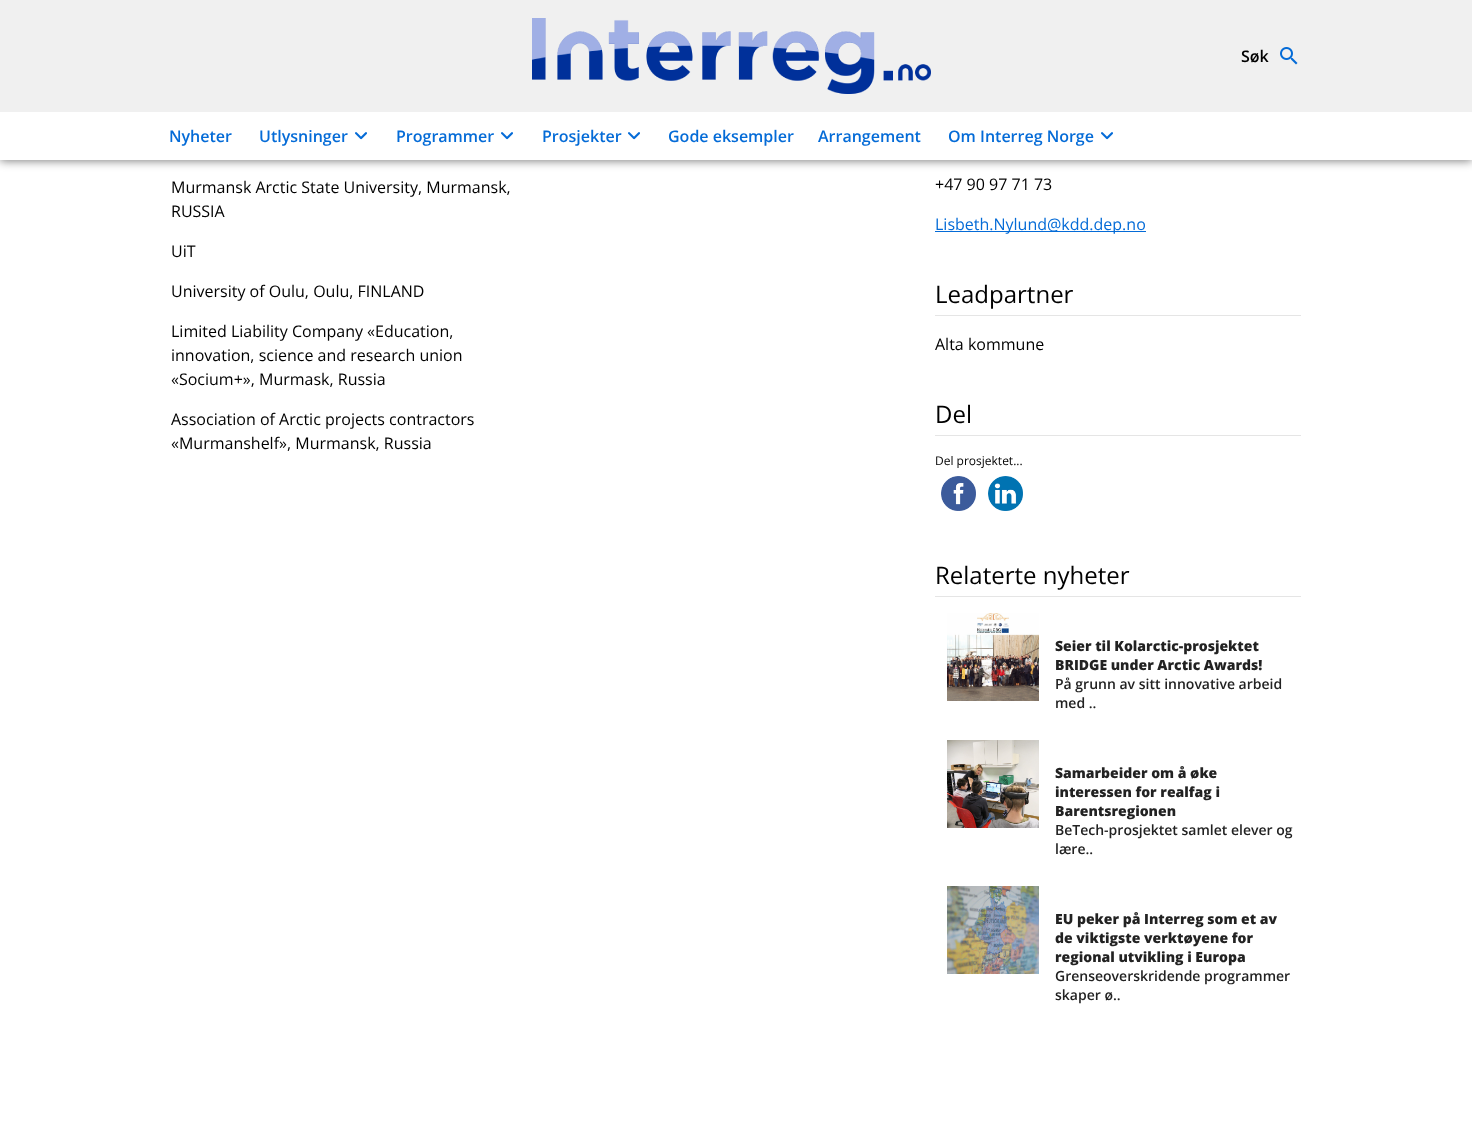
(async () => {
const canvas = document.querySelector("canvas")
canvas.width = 1472
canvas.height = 1136
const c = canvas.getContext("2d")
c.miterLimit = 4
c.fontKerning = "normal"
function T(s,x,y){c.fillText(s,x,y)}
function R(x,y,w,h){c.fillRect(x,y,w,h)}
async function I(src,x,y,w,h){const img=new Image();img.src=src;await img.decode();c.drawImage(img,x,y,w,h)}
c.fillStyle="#fff"
R(0,0,1472,1136)
c.fillStyle="#00000080"
c.filter="blur(5px)"
c.beginPath()
c.rect(0,1,1472,160)
c.fill()
c.filter="none"
c.fillStyle="#f0f0f0"
R(0,0,1472,112)
await I("1.png",532,18,399,76)
c.font="600 16px Open Sans"
c.fillStyle="#000"
T("Søk",1241,62)
await I("2.png",1280,47,18,18)
c.fillStyle="#fff"
R(0,112,1472,48)
c.fillStyle="#046bd7"
T("Nyheter",169,142)
T("Utlysninger",259,142)
await I("3.png",355,132,12,8)
T("Programmer",396,142)
await I("3.png",501,132,12,8)
T("Prosjekter",542,142)
await I("3.png",628,132,12,8)
T("Gode eksempler",668,142)
T("Arrangement",818,142)
T("Om Interreg Norge",948,142)
await I("3.png",1101,132,12,8)
c.font="16px Open Sans"
c.fillStyle="#000"
T("Murmansk Arctic State University, Murmansk,",171,193)
T("RUSSIA",171,217)
T("UiT",171,257)
T("University of Oulu, Oulu, FINLAND",171,297)
T("Limited Liability Company «Education,",171,337)
T("innovation, science and research union",171,361)
T("«Socium+», Murmask, Russia",171,385)
T("Association of Arctic projects contractors",171,425)
T("«Murmanshelf», Murmansk, Russia",171,449)
T("+47 90 97 71 73",935,190)
c.fillStyle="#046bd7"
R(935,231,211,1)
T("Lisbeth.Nylund@kdd.dep.no",935,230)
c.fillStyle="#e5e5e5"
R(935,315,366,1)
c.font="24px Open Sans"
c.fillStyle="#000"
T("Leadpartner",935,303)
c.font="16px Open Sans"
T("Alta kommune",935,350)
c.fillStyle="#e5e5e5"
R(935,435,366,1)
c.font="24px Open Sans"
c.fillStyle="#000"
T("Del",935,423)
c.font="12px Open Sans"
T("Del prosjektet...",935,465)
await I("4.png",941,476,35,35)
await I("5.png",988,476,35,35)
c.fillStyle="#e5e5e5"
R(935,596,366,1)
c.font="24px Open Sans"
c.fillStyle="#000"
T("Relaterte nyheter",935,584)
await I("6.png",947,613,92,88)
c.font="800 14px Open Sans"
c.fillStyle="#222"
T("Seier til Kolarctic-prosjektet",1055,651)
T("BRIDGE under Arctic Awards!",1055,670)
c.font="600 14px Open Sans"
T("På grunn av sitt innovative arbeid",1055,689)
T("med ..",1055,708)
await I("7.png",947,740,92,88)
c.font="800 14px Open Sans"
T("Samarbeider om å øke",1055,778)
T("interessen for realfag i",1055,797)
T("Barentsregionen",1055,816)
c.font="600 14px Open Sans"
T("BeTech-prosjektet samlet elever og",1055,835)
T("lære..",1055,854)
await I("8.png",947,886,92,88)
c.font="800 14px Open Sans"
T("EU peker på Interreg som et av",1055,924)
T("de viktigste verktøyene for",1055,943)
T("regional utvikling i Europa",1055,962)
c.font="600 14px Open Sans"
T("Grenseoverskridende programmer",1055,981)
T("skaper ø..",1055,1000)
})()
